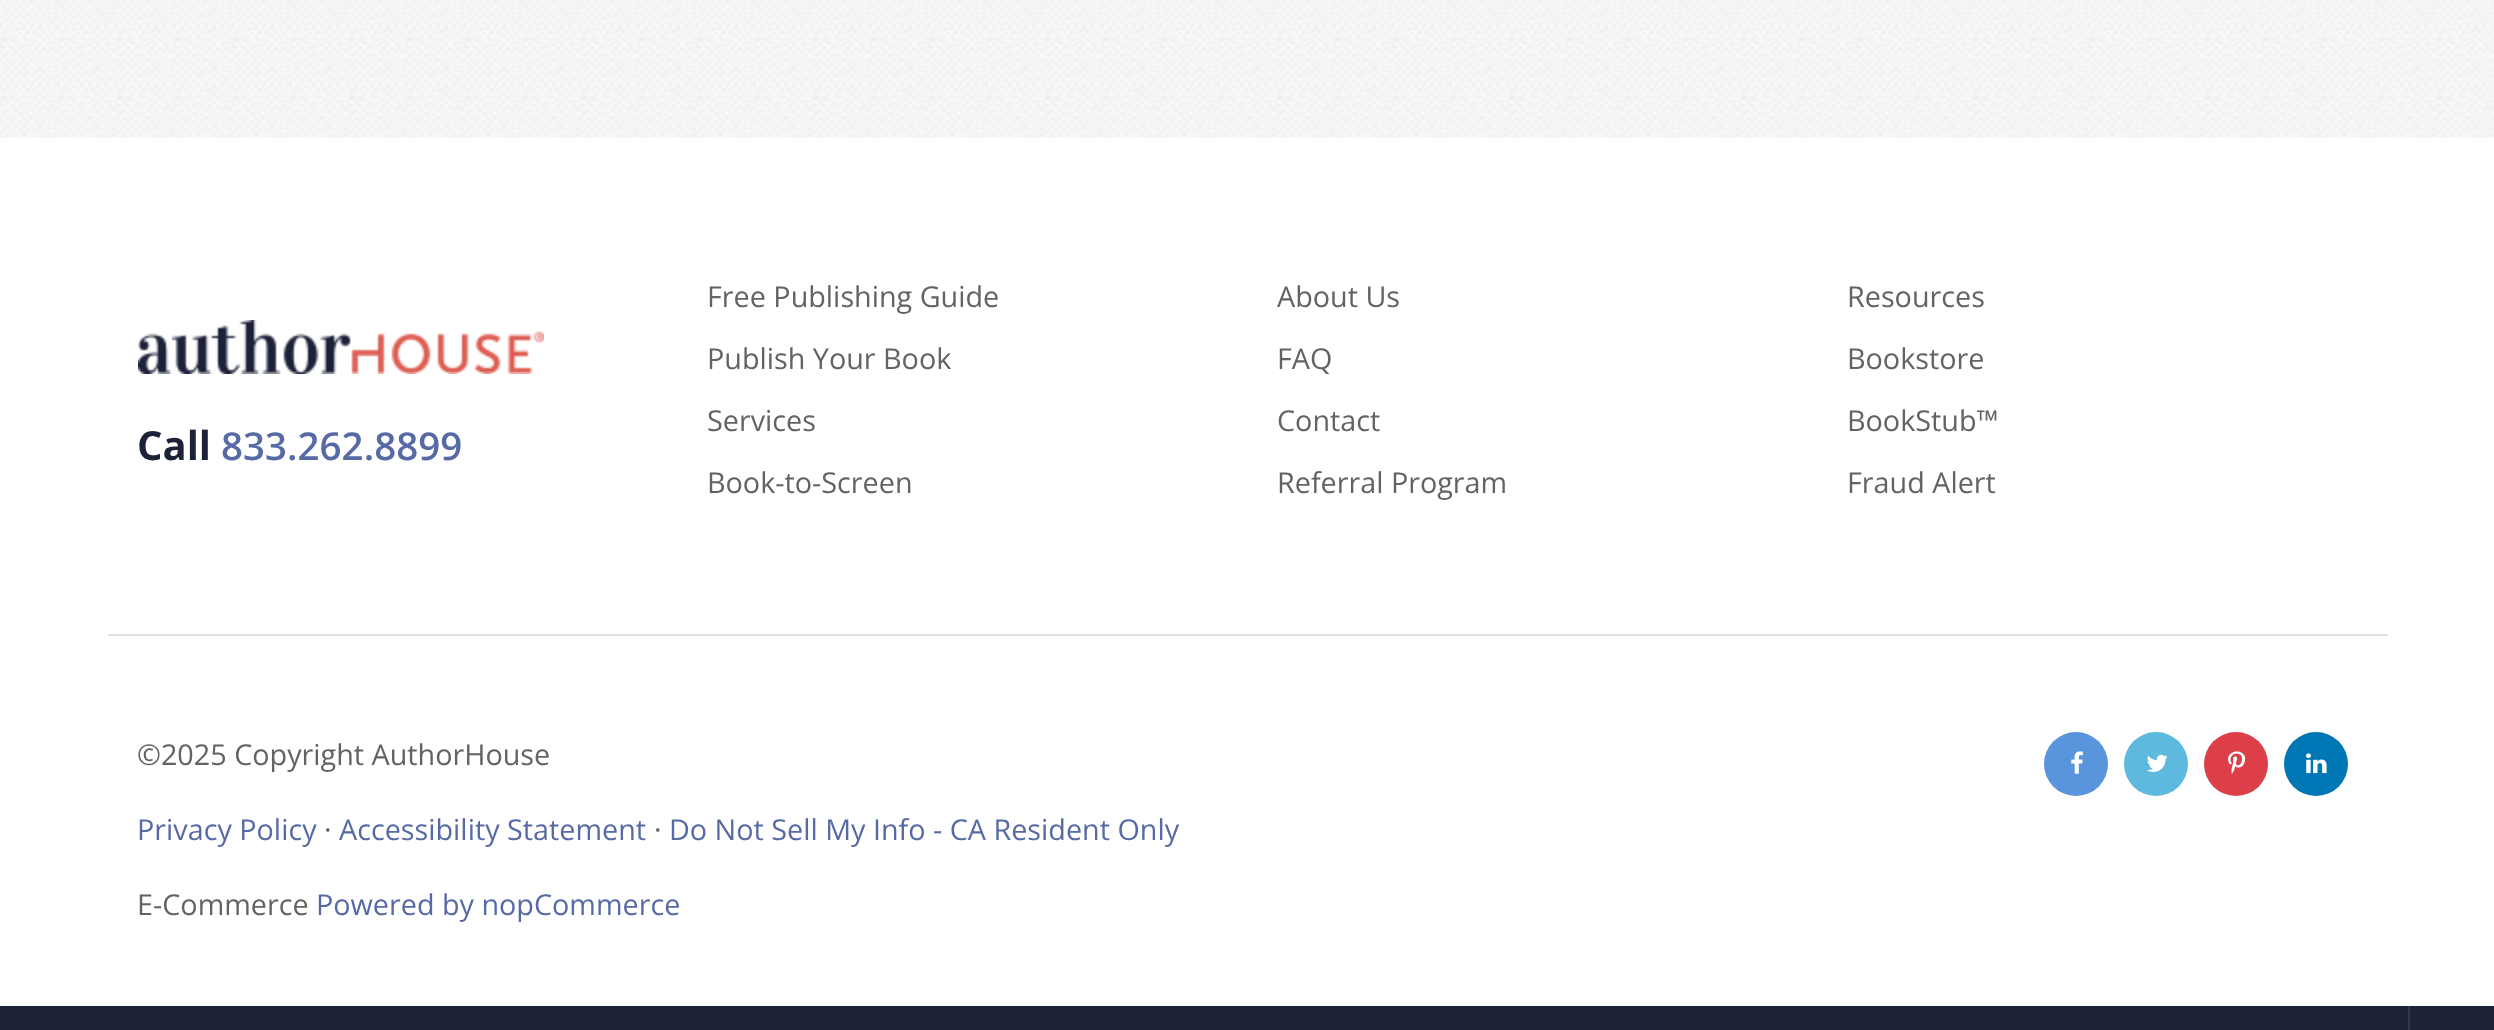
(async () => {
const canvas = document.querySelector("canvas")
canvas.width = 2494
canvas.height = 1030
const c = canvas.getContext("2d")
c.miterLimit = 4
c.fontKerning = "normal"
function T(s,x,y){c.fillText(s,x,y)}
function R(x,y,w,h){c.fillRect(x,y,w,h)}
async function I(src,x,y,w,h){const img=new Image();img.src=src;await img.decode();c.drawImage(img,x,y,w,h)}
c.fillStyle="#fff"
R(0,0,2494,1030)
await I("1.png",0,0,2494,138)
await I("2.png",138,320,406,54)
c.font="bold 40px Open Sans"
c.fillStyle="#1c2238"
T("Call",137,460)
c.font="600 38.5px Open Sans"
c.fillStyle="#576aa5"
T("833.262.8899",221,460)
c.font="28.75px Open Sans"
c.fillStyle="#636363"
T("Free Publishing Guide",707,307)
T("Publish Your Book",707,369)
T("Services",707,431)
T("Book-to-Screen",707,493)
T("About Us",1277,307)
T("FAQ",1277,369)
T("Contact",1277,431)
T("Referral Program",1277,493)
T("Resources",1847,307)
T("Bookstore",1847,369)
T("BookStub™",1847,431)
T("Fraud Alert",1847,493)
c.fillStyle="#dee2e6"
R(108,634,2280,2)
c.fillStyle="#636363"
T("©2025 Copyright AuthorHouse",137,765)
c.fillStyle="#576aa5"
T("Privacy Policy",137,840)
c.fillStyle="#636363"
T("·",324,840)
c.fillStyle="#576aa5"
T("Accessibility Statement",339,840)
c.fillStyle="#636363"
T("·",654,840)
c.fillStyle="#576aa5"
T("Do Not Sell My Info - CA Resident Only",669,840)
c.fillStyle="#636363"
T("E-Commerce",137,915)
c.fillStyle="#576aa5"
T("Powered by nopCommerce",316,915)
c.fillStyle="#5895dd"
c.beginPath()
c.arc(2076,764,32,0,7)
c.fill()
await I("3.png",2071,751,12,23)
c.fillStyle="#5db9de"
c.beginPath()
c.arc(2156,764,32,0,7)
c.fill()
await I("4.png",2146,754,22,18)
c.fillStyle="#dd3f49"
c.beginPath()
c.arc(2236,764,32,0,7)
c.fill()
await I("5.png",2228,751,18,23)
c.fillStyle="#0077b5"
c.beginPath()
c.arc(2316,764,32,0,7)
c.fill()
await I("6.png",2306,753,21,21)
c.fillStyle="#1c2238"
R(0,1006,2494,24)
c.fillStyle="#303942"
R(2408,1006,2,24)
})()
